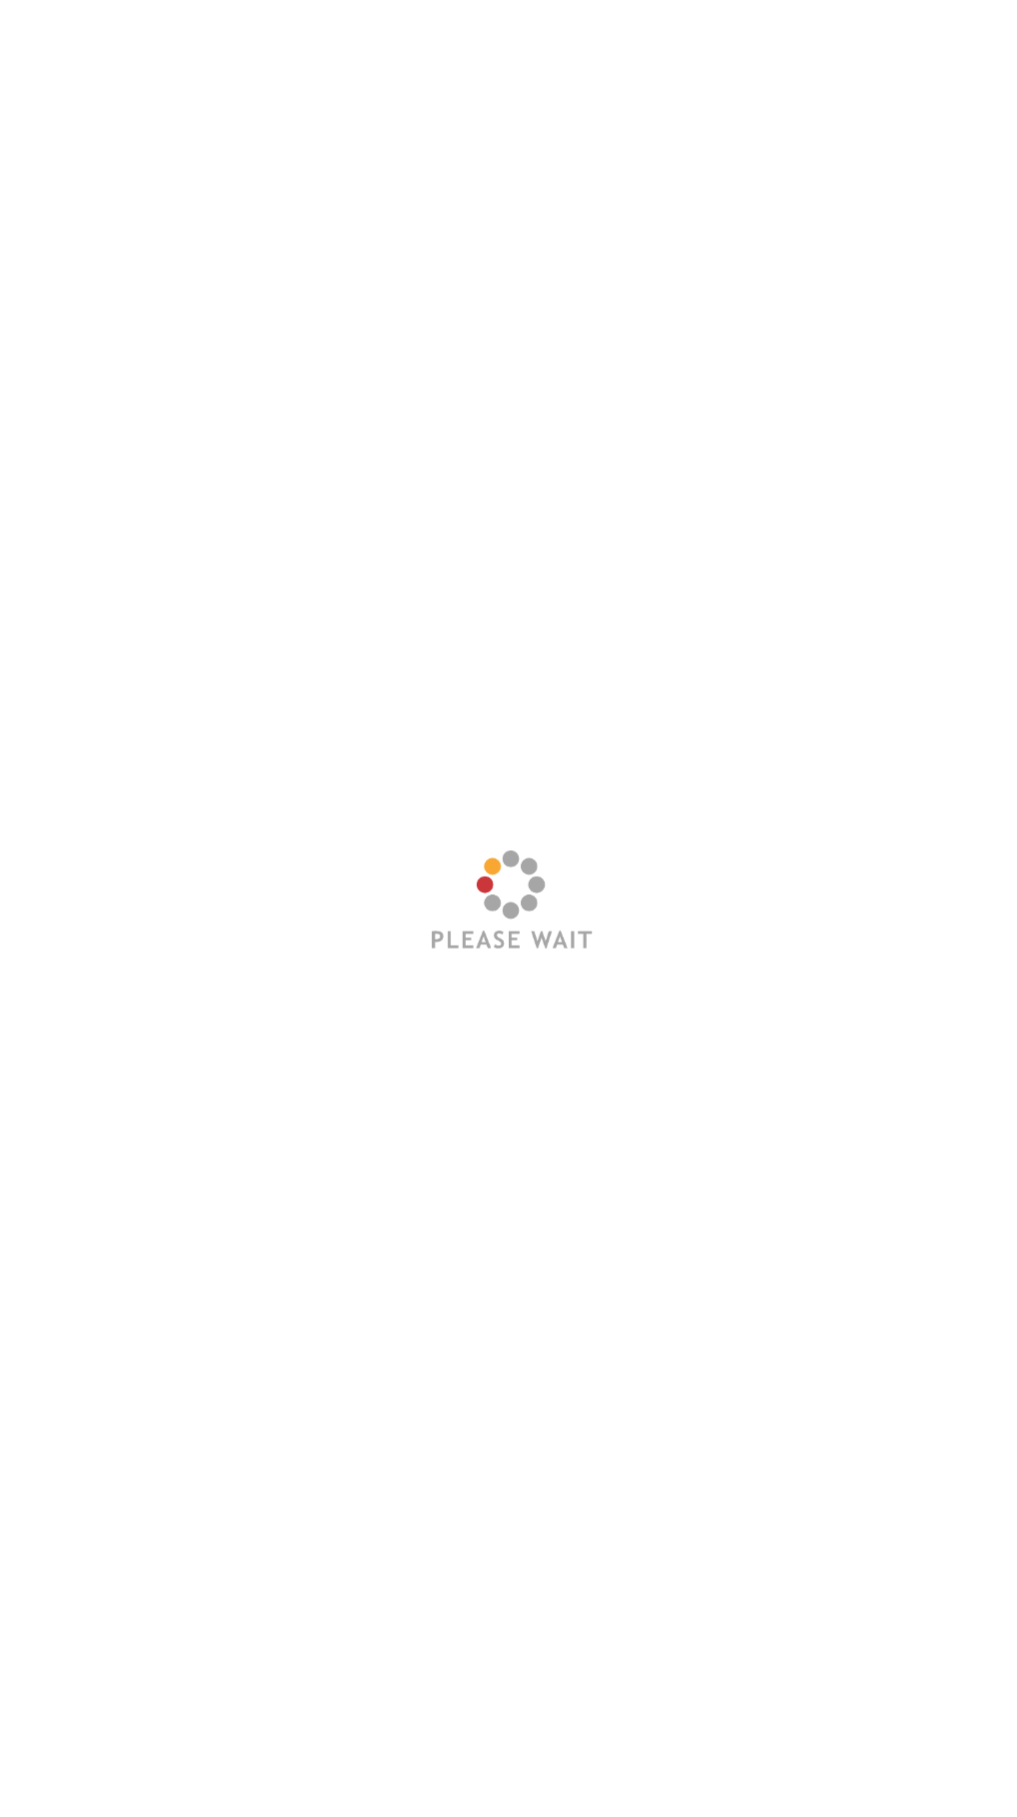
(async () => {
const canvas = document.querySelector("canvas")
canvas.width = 1017
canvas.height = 1817
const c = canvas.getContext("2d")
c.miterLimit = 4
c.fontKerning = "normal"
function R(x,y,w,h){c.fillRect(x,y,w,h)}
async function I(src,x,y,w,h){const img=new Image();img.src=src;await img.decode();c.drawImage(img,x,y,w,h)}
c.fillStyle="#fff"
R(0,0,1017,1817)
await I("1.png",372,20,274,168)
await I("2.png",953,230,26,25)
await I("3.png",431,850,162,99)
})()
